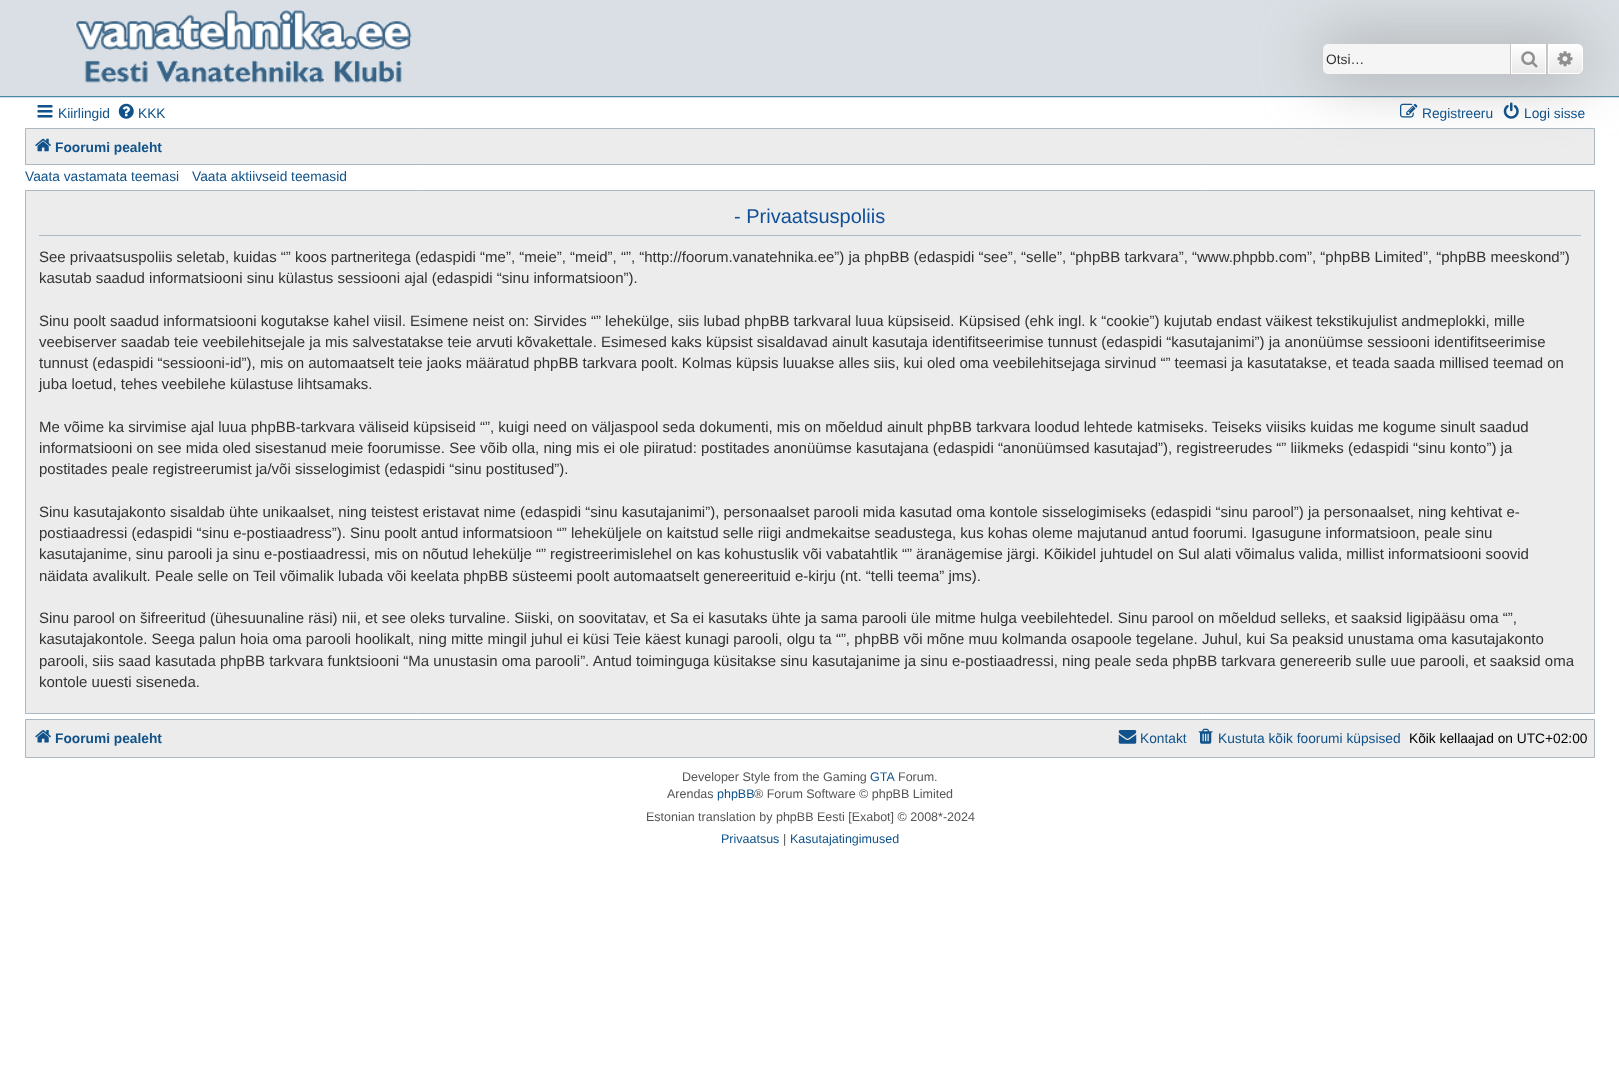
(async () => {
const canvas = document.querySelector("canvas")
canvas.width = 1619
canvas.height = 1086
const c = canvas.getContext("2d")
c.miterLimit = 4
c.fontKerning = "normal"
function T(s,x,y){c.fillText(s,x,y)}
function R(x,y,w,h){c.fillRect(x,y,w,h)}
async function I(src,x,y,w,h){const img=new Image();img.src=src;await img.decode();c.drawImage(img,x,y,w,h)}
let gradient
c.fillStyle="#fff"
R(0,0,1619,1086)
c.fillStyle="#d9dfe4"
R(0,0,1619,98)
c.fillStyle="#4787a7"
R(0,96,1619,1)
await I("1.png",75,10,337,73)
c.fillStyle="#ececec"
c.beginPath()
c.rect(25.5,128.5,1569,36)
c.fill()
c.strokeStyle="#a9b8c2"
c.stroke()
c.fillStyle="#999"
c.filter="blur(31px)"
c.beginPath()
c.roundRect(1323,44,260,30,5)
c.fill()
c.filter="none"
c.fillStyle="#f5f5f5"
c.beginPath()
c.roundRect(1323,44,187,30,[5,0,0,5])
c.fill()
c.font="13.75px Liberation Sans"
c.fillStyle="#333"
T("Otsi…",1326,64)
gradient = c.createLinearGradient(1529,44,1529,74)
gradient.addColorStop(0,"#fff")
gradient.addColorStop(1,"#e9e9e9")
c.fillStyle = gradient
R(1512,45,33,28)
c.strokeStyle="#fff"
c.strokeRect(1511.5,44.5,34,29)
c.fillStyle="#c7c3bf"
R(1546,44,1,30)
R(1510,44,1,30)
await I("2.png",1521,51,17,17)
gradient = c.createLinearGradient(1565,44,1565,74)
gradient.addColorStop(0,"#fff")
gradient.addColorStop(1,"#e9e9e9")
c.fillStyle = gradient
c.beginPath()
c.roundRect(1548.5,44.5,34,29,[0,4.5,4.5,0])
c.fill()
c.stroke()
await I("3.png",1557,51,16,16)
await I("4.png",37,105,16,13)
c.fillStyle="#105289"
T("Kiirlingid",58,118)
await I("5.png",118,103,16,16)
T("KKK",138,118)
await I("6.png",1400,103,18,15)
T("Registreeru",1422,118)
await I("7.png",1503,102,16,17)
T("Logi sisse",1524,118)
await I("8.png",35,138,16,14)
c.font="bold 13.75px Liberation Sans"
T("Foorumi pealeht",55,152)
c.font="13.75px Liberation Sans"
T("Vaata vastamata teemasi",25,181)
T("Vaata aktiivseid teemasid",192,181)
c.fillStyle="#ececec"
c.beginPath()
c.rect(25.5,190.5,1569,523)
c.fill()
c.strokeStyle="#a9b8c2"
c.stroke()
c.fillStyle="#a9b8c2"
R(39,235,1542,1)
c.font="20px Liberation Sans"
c.fillStyle="#115098"
T("- Privaatsuspoliis",734,223)
c.font="15px Liberation Sans"
c.fillStyle="#333"
T("See privaatsuspoliis seletab, kuidas “” koos partneritega (edaspidi “me”, “meie”, “meid”, “”, “http://foorum.vanatehnika.ee”) ja phpBB (edaspidi “see”, “selle”, “phpBB tarkvara”, “www.phpbb.com”, “phpBB Limited”, “phpBB meeskond”)",39,262)
T("kasutab saadud informatsiooni sinu külastus sessiooni ajal (edaspidi “sinu informatsioon”).",39,283)
T("Sinu poolt saadud informatsiooni kogutakse kahel viisil. Esimene neist on: Sirvides “” lehekülge, siis lubad phpBB tarkvaral luua küpsiseid. Küpsised (ehk ingl. k “cookie”) kujutab endast väikest tekstikujulist andmeplokki, mille",39,326)
T("veebiserver saadab teie veebilehitsejale ja mis salvestatakse teie arvuti kõvakettale. Esimesed kaks küpsist sisaldavad ainult kasutaja identifitseerimise tunnust (edaspidi “kasutajanimi”) ja anonüümse sessiooni identifitseerimise",39,347)
T("tunnust (edaspidi “sessiooni-id”), mis on automaatselt teie jaoks määratud phpBB tarkvara poolt. Kolmas küpsis luuakse alles siis, kui oled oma veebilehitsejaga sirvinud “” teemasi ja kasutatakse, et teada saada millised teemad on",39,368)
T("juba loetud, tehes veebilehe külastuse lihtsamaks.",39,389)
T("Me võime ka sirvimise ajal luua phpBB-tarkvara väliseid küpsiseid “”, kuigi need on väljaspool seda dokumenti, mis on mõeldud ainult phpBB tarkvara loodud lehtede katmiseks. Teiseks viisiks kuidas me kogume sinult saadud",39,432)
T("informatsiooni on see mida oled sisestanud meie foorumisse. See võib olla, ning mis ei ole piiratud: postitades anonüümse kasutajana (edaspidi “anonüümsed kasutajad”), registreerudes “” liikmeks (edaspidi “sinu konto”) ja",39,453)
T("postitades peale registreerumist ja/või sisselogimist (edaspidi “sinu postitused”).",39,474)
T("Sinu kasutajakonto sisaldab ühte unikaalset, ning teistest eristavat nime (edaspidi “sinu kasutajanimi”), personaalset parooli mida kasutad oma kontole sisselogimiseks (edaspidi “sinu parool”) ja personaalset, ning kehtivat e-",39,517)
T("postiaadressi (edaspidi “sinu e-postiaadress”). Sinu poolt antud informatsioon “” leheküljele on kaitstud selle riigi andmekaitse seadustega, kus kohas oleme majutanud antud foorumi. Igasugune informatsioon, peale sinu",39,538)
T("kasutajanime, sinu parooli ja sinu e-postiaadressi, mis on nõutud lehekülje “” registreerimislehel on kas kohustuslik või vabatahtlik “” äranägemise järgi. Kõikidel juhtudel on Sul alati võimalus valida, millist informatsiooni soovid",39,559)
T("näidata avalikult. Peale selle on Teil võimalik lubada või keelata phpBB süsteemi poolt automaatselt genereerituid e-kirju (nt. “telli teema” jms).",39,581)
T("Sinu parool on šifreeritud (ühesuunaline räsi) nii, et see oleks turvaline. Siiski, on soovitatav, et Sa ei kasutaks ühte ja sama parooli üle mitme hulga veebilehtedel. Sinu parool on mõeldud selleks, et saaksid ligipääsu oma “”,",39,623)
T("kasutajakontole. Seega palun hoia oma parooli hoolikalt, ning mitte mingil juhul ei küsi Teie käest kunagi parooli, olgu ta “”, phpBB või mõne muu kolmanda osapoole tegelane. Juhul, kui Sa peaksid unustama oma kasutajakonto",39,644)
T("parooli, siis saad kasutada phpBB tarkvara funktsiooni “Ma unustasin oma parooli”. Antud toiminguga küsitakse sinu kasutajanime ja sinu e-postiaadressi, ning peale seda phpBB tarkvara genereerib sulle uue parooli, et saaksid oma",39,666)
T("kontole uuesti siseneda.",39,687)
c.fillStyle="#ececec"
c.beginPath()
c.rect(25.5,719.5,1569,38)
c.fill()
c.stroke()
await I("9.png",35,730,16,13)
c.font="bold 13.75px Liberation Sans"
c.fillStyle="#105289"
T("Foorumi pealeht",55,743)
await I("10.png",1118,730,19,14)
c.font="13.75px Liberation Sans"
T("Kontakt",1140,743)
await I("11.png",1198,728,15,16)
T("Kustuta kõik foorumi küpsised",1218,743)
c.fillStyle="#000"
T("Kõik kellaajad on UTC+02:00",1409,743)
c.font="12.5px Liberation Sans"
c.fillStyle="#555"
T("Developer Style from the Gaming",682,781)
c.fillStyle="#105289"
T("GTA",870,781)
c.fillStyle="#555"
T("Forum.",898,781)
T("Arendas",667,798)
c.fillStyle="#105289"
T("phpBB",717,798)
c.fillStyle="#555"
T("® Forum Software © phpBB Limited",754,798)
T("Estonian translation by phpBB Eesti [Exabot] © 2008*-2024",646,821)
c.fillStyle="#105289"
T("Privaatsus",721,843)
c.fillStyle="#555"
T("|",783,843)
c.fillStyle="#105289"
T("Kasutajatingimused",790,843)
})()
